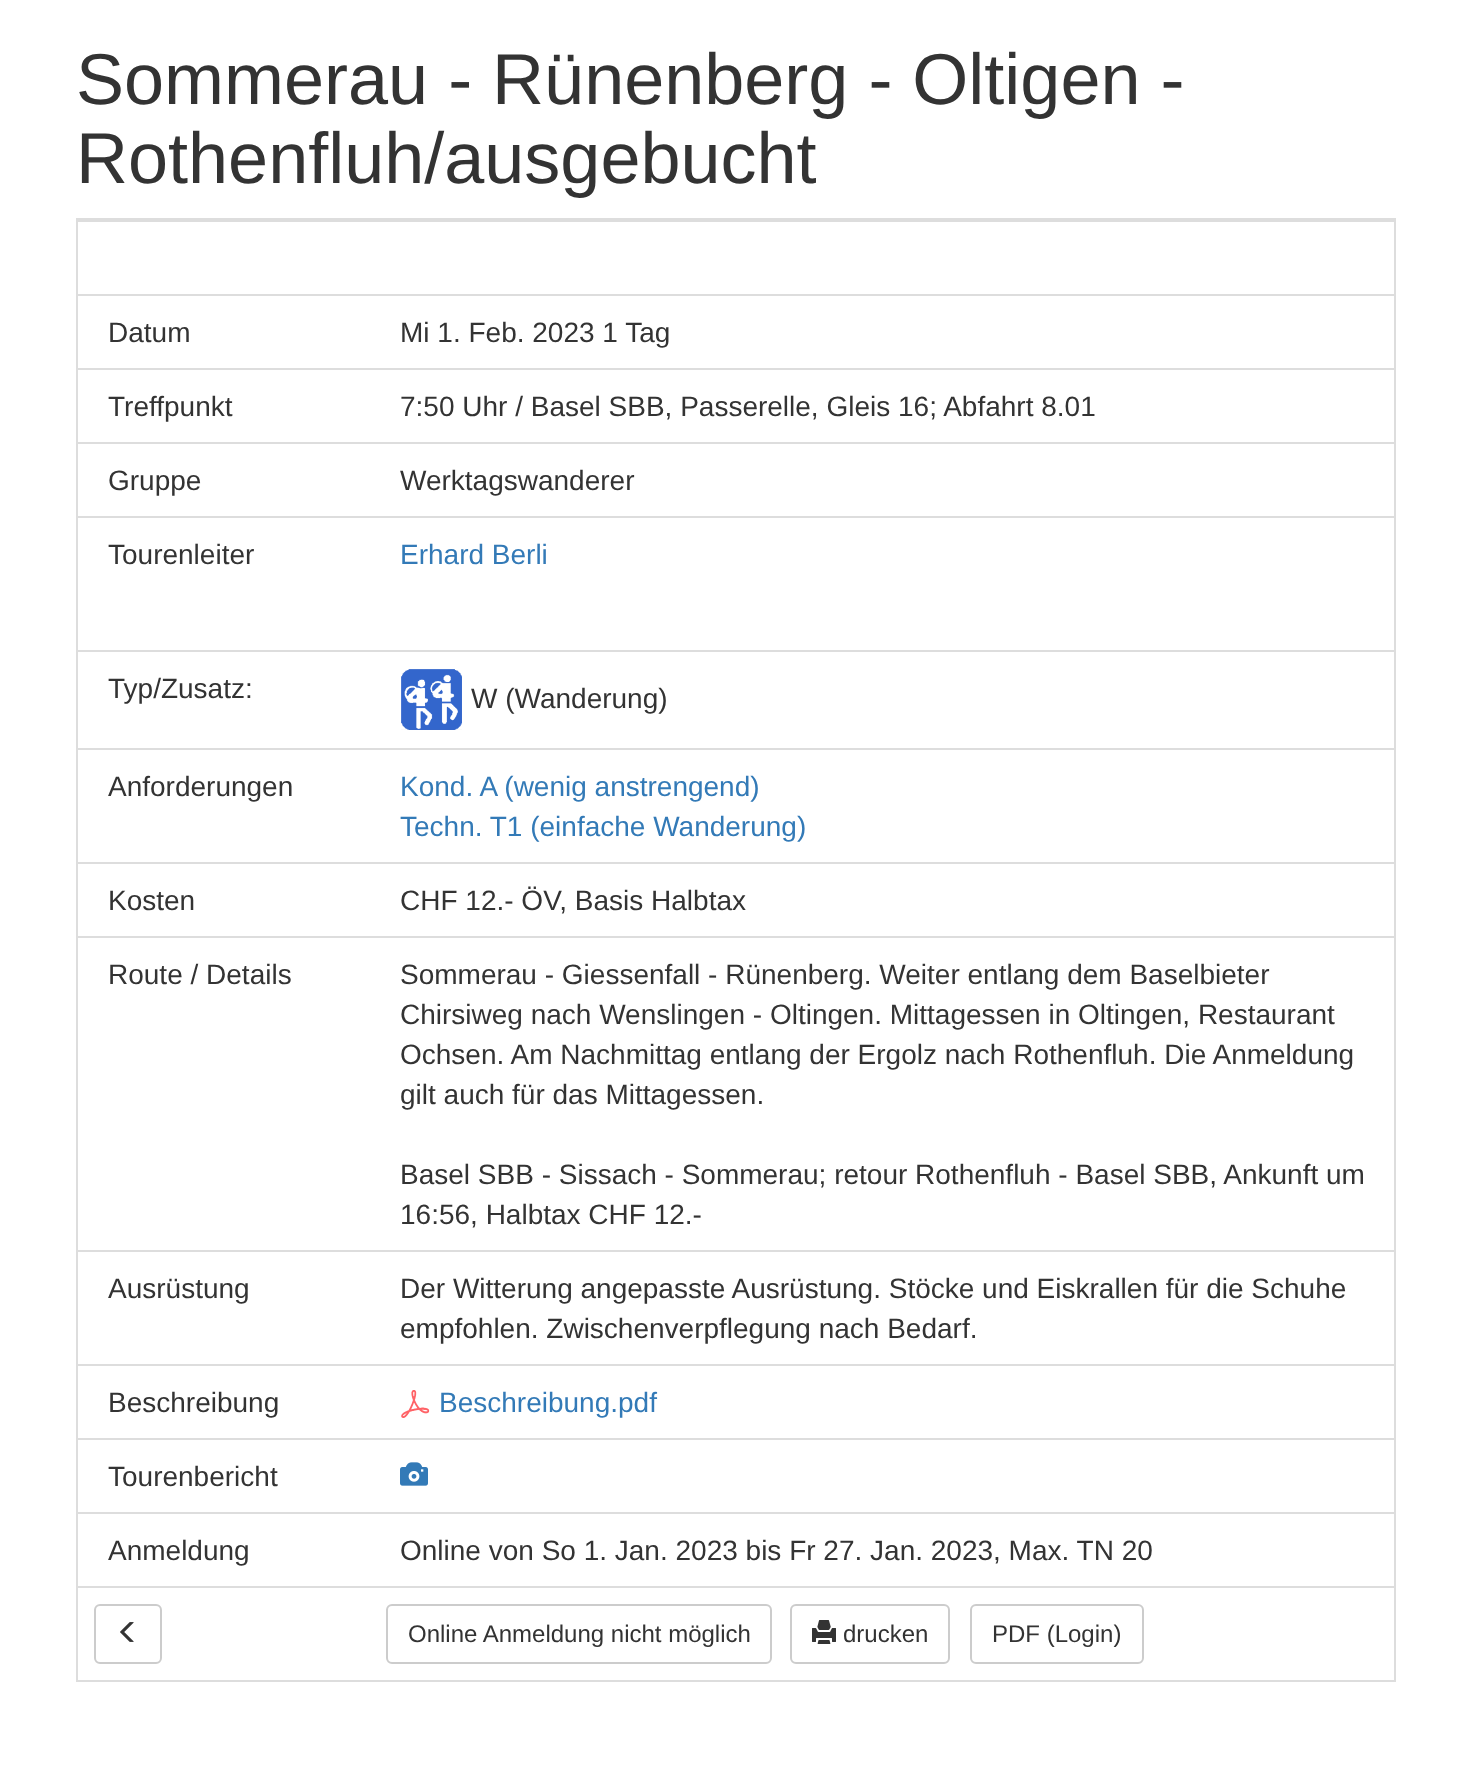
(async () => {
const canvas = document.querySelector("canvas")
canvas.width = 1471
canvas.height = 1766
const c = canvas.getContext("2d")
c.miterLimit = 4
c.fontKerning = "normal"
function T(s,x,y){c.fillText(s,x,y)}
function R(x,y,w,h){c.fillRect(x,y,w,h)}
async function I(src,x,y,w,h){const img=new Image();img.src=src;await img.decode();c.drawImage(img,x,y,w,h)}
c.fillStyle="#fff"
R(0,0,1471,1766)
c.font="72px Liberation Sans"
c.fillStyle="#333"
T("Sommerau - Rünenberg - Oltigen -",76,104)
T("Rothenfluh/ausgebucht",76,183)
c.strokeStyle="#ddd"
c.lineWidth=2
c.strokeRect(77,219,1318,1462)
c.fillStyle="#ddd"
R(78,220,1316,2)
c.font="28px Liberation Sans"
c.fillStyle="#333"
T("Datum",108,342)
c.fillStyle="#ddd"
R(78,294,1316,2)
c.fillStyle="#333"
T("Mi 1. Feb. 2023 1 Tag",400,342)
T("Treffpunkt",108,416)
c.fillStyle="#ddd"
R(78,368,1316,2)
c.fillStyle="#333"
T("7:50 Uhr / Basel SBB, Passerelle, Gleis 16; Abfahrt 8.01",400,416)
T("Gruppe",108,490)
c.fillStyle="#ddd"
R(78,442,1316,2)
c.fillStyle="#333"
T("Werktagswanderer",400,490)
T("Tourenleiter",108,564)
c.fillStyle="#ddd"
R(78,516,1316,2)
c.fillStyle="#337ab7"
T("Erhard Berli",400,564)
c.fillStyle="#ddd"
R(78,650,1316,2)
c.fillStyle="#333"
T("Typ/Zusatz:",108,698)
await I("1.png",401,669,61,61)
T("W (Wanderung)",471,708)
c.fillStyle="#ddd"
R(78,748,1316,2)
c.fillStyle="#333"
T("Anforderungen",108,796)
c.fillStyle="#337ab7"
T("Kond. A (wenig anstrengend)",400,796)
T("Techn. T1 (einfache Wanderung)",400,836)
c.fillStyle="#333"
T("Kosten",108,910)
c.fillStyle="#ddd"
R(78,862,1316,2)
c.fillStyle="#333"
T("CHF 12.- ÖV, Basis Halbtax",400,910)
T("Route / Details",108,984)
c.fillStyle="#ddd"
R(78,936,1316,2)
c.fillStyle="#333"
T("Sommerau - Giessenfall - Rünenberg. Weiter entlang dem Baselbieter",400,984)
T("Chirsiweg nach Wenslingen - Oltingen. Mittagessen in Oltingen, Restaurant",400,1024)
T("Ochsen. Am Nachmittag entlang der Ergolz nach Rothenfluh. Die Anmeldung",400,1064)
T("gilt auch für das Mittagessen.",400,1104)
T("Basel SBB - Sissach - Sommerau; retour Rothenfluh - Basel SBB, Ankunft um",400,1184)
T("16:56, Halbtax CHF 12.-",400,1224)
T("Ausrüstung",108,1298)
c.fillStyle="#ddd"
R(78,1250,1316,2)
c.fillStyle="#333"
T("Der Witterung angepasste Ausrüstung. Stöcke und Eiskrallen für die Schuhe",400,1298)
T("empfohlen. Zwischenverpflegung nach Bedarf.",400,1338)
T("Beschreibung",108,1412)
c.fillStyle="#ddd"
R(78,1364,1316,2)
await I("2.png",401,1390,29,28)
c.fillStyle="#337ab7"
T("Beschreibung.pdf",439,1412)
c.fillStyle="#ddd"
R(78,1438,1316,2)
await I("3.png",400,1462,28,24)
c.fillStyle="#333"
T("Tourenbericht",108,1486)
T("Anmeldung",108,1560)
c.fillStyle="#ddd"
R(78,1512,1316,2)
c.fillStyle="#333"
T("Online von So 1. Jan. 2023 bis Fr 27. Jan. 2023, Max. TN 20",400,1560)
c.beginPath()
c.roundRect(95,1605,66,58,5)
c.strokeStyle="#ccc"
c.stroke()
await I("4.png",120,1622,14,20)
c.fillStyle="#ddd"
R(78,1586,1316,2)
c.beginPath()
c.roundRect(387,1605,384,58,5)
c.stroke()
c.font="24px Liberation Sans"
c.fillStyle="#333"
T("Online Anmeldung nicht möglich",408,1642)
c.beginPath()
c.roundRect(791,1605,158,58,5)
c.stroke()
await I("5.png",812,1620,24,24)
T("drucken",843,1642)
c.beginPath()
c.roundRect(971,1605,172,58,5)
c.stroke()
T("PDF (Login)",992,1642)
})()
